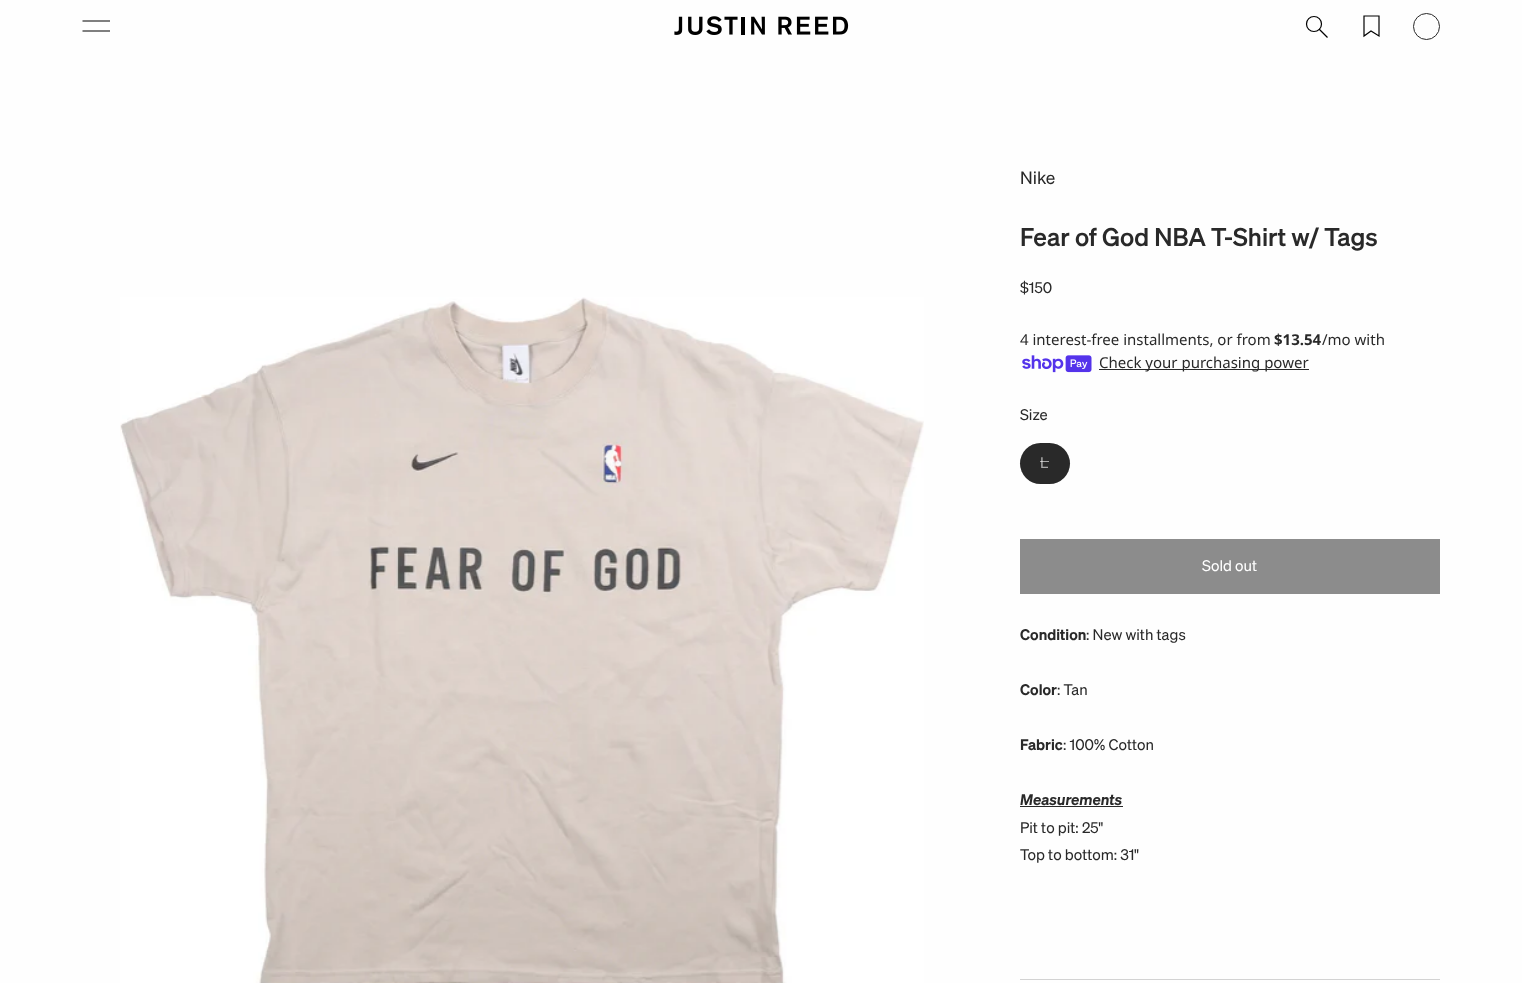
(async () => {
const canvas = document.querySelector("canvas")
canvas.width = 1522
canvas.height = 983
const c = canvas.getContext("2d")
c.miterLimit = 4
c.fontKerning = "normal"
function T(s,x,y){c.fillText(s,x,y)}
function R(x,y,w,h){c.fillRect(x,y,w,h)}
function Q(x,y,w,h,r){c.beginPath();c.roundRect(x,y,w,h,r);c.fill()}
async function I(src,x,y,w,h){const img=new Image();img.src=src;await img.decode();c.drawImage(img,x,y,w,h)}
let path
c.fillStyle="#fefefe"
R(0,0,1522,983)
path = new Path2D("M82.5 21h27.5m-27.5 10h27.5")
c.strokeStyle="#000"
c.lineWidth=1.2
c.stroke(path)
await I("1.png",674,16,175,19)
c.beginPath()
c.arc(1314,24,7.5,0,7)
c.stroke()
path = new Path2D("M1319 29l8.5 8.5")
c.stroke(path)
path = new Path2D("M1364 16v20l7-5l8 5v-20z")
c.stroke(path)
c.beginPath()
c.arc(1426.5,26.5,13,0,7)
c.strokeStyle="#292929"
c.lineWidth=1
c.stroke()
await I("2.png",120,297,804,686)
c.font="17.5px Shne"
c.fillStyle="#292929"
T("Nike",1020,184)
c.font="500 25px Shne"
T("Fear of God NBA T-Shirt w/ Tags",1020,246)
c.font="15px Shne"
T("$150",1020,293)
c.font="15px Noto Sans"
T("4 interest-free installments, or from",1020,345)
c.font="bold 15px Noto Sans"
T("$13.54",1274,345)
c.font="15px Noto Sans"
T("/mo with",1322,345)
await I("3.png",1022,355,70,18)
R(1099,369,210,1)
T("Check your purchasing power",1099,368)
c.font="15px Shne"
T("Size",1020,420)
Q(1020,443,50,41,20.5)
c.beginPath()
c.roundRect(1020.5,443.5,49,40,20)
c.strokeStyle="#2929291a"
c.stroke()
c.fillStyle="#a9a9a9"
T("L",1040,468)
c.fillStyle="#fefefe99"
R(1040,461,9,1)
c.fillStyle="#8c8c8c"
R(1020,539,420,55)
c.fillStyle="#fff"
T("Sold out",1202,571)
c.font="600 15px Shne"
c.fillStyle="#292929"
T("Condition",1020,640)
c.font="15px Shne"
T(": New with tags",1086,640)
c.font="600 15px Shne"
T("Color",1020,695)
c.font="15px Shne"
T(": Tan",1057,695)
c.font="600 15px Shne"
T("Fabric",1020,750)
c.font="15px Shne"
T(": 100% Cotton",1063,750)
c.font="italic 600 15px Shne"
T("Measurements",1020,805)
R(1020,806,103,1)
c.font="15px Shne"
T("Pit to pit: 25\"",1020,833)
T("Top to bottom: 31\"",1020,860)
c.fillStyle="#d3d3d3"
R(1020,979,420,1)
})()
